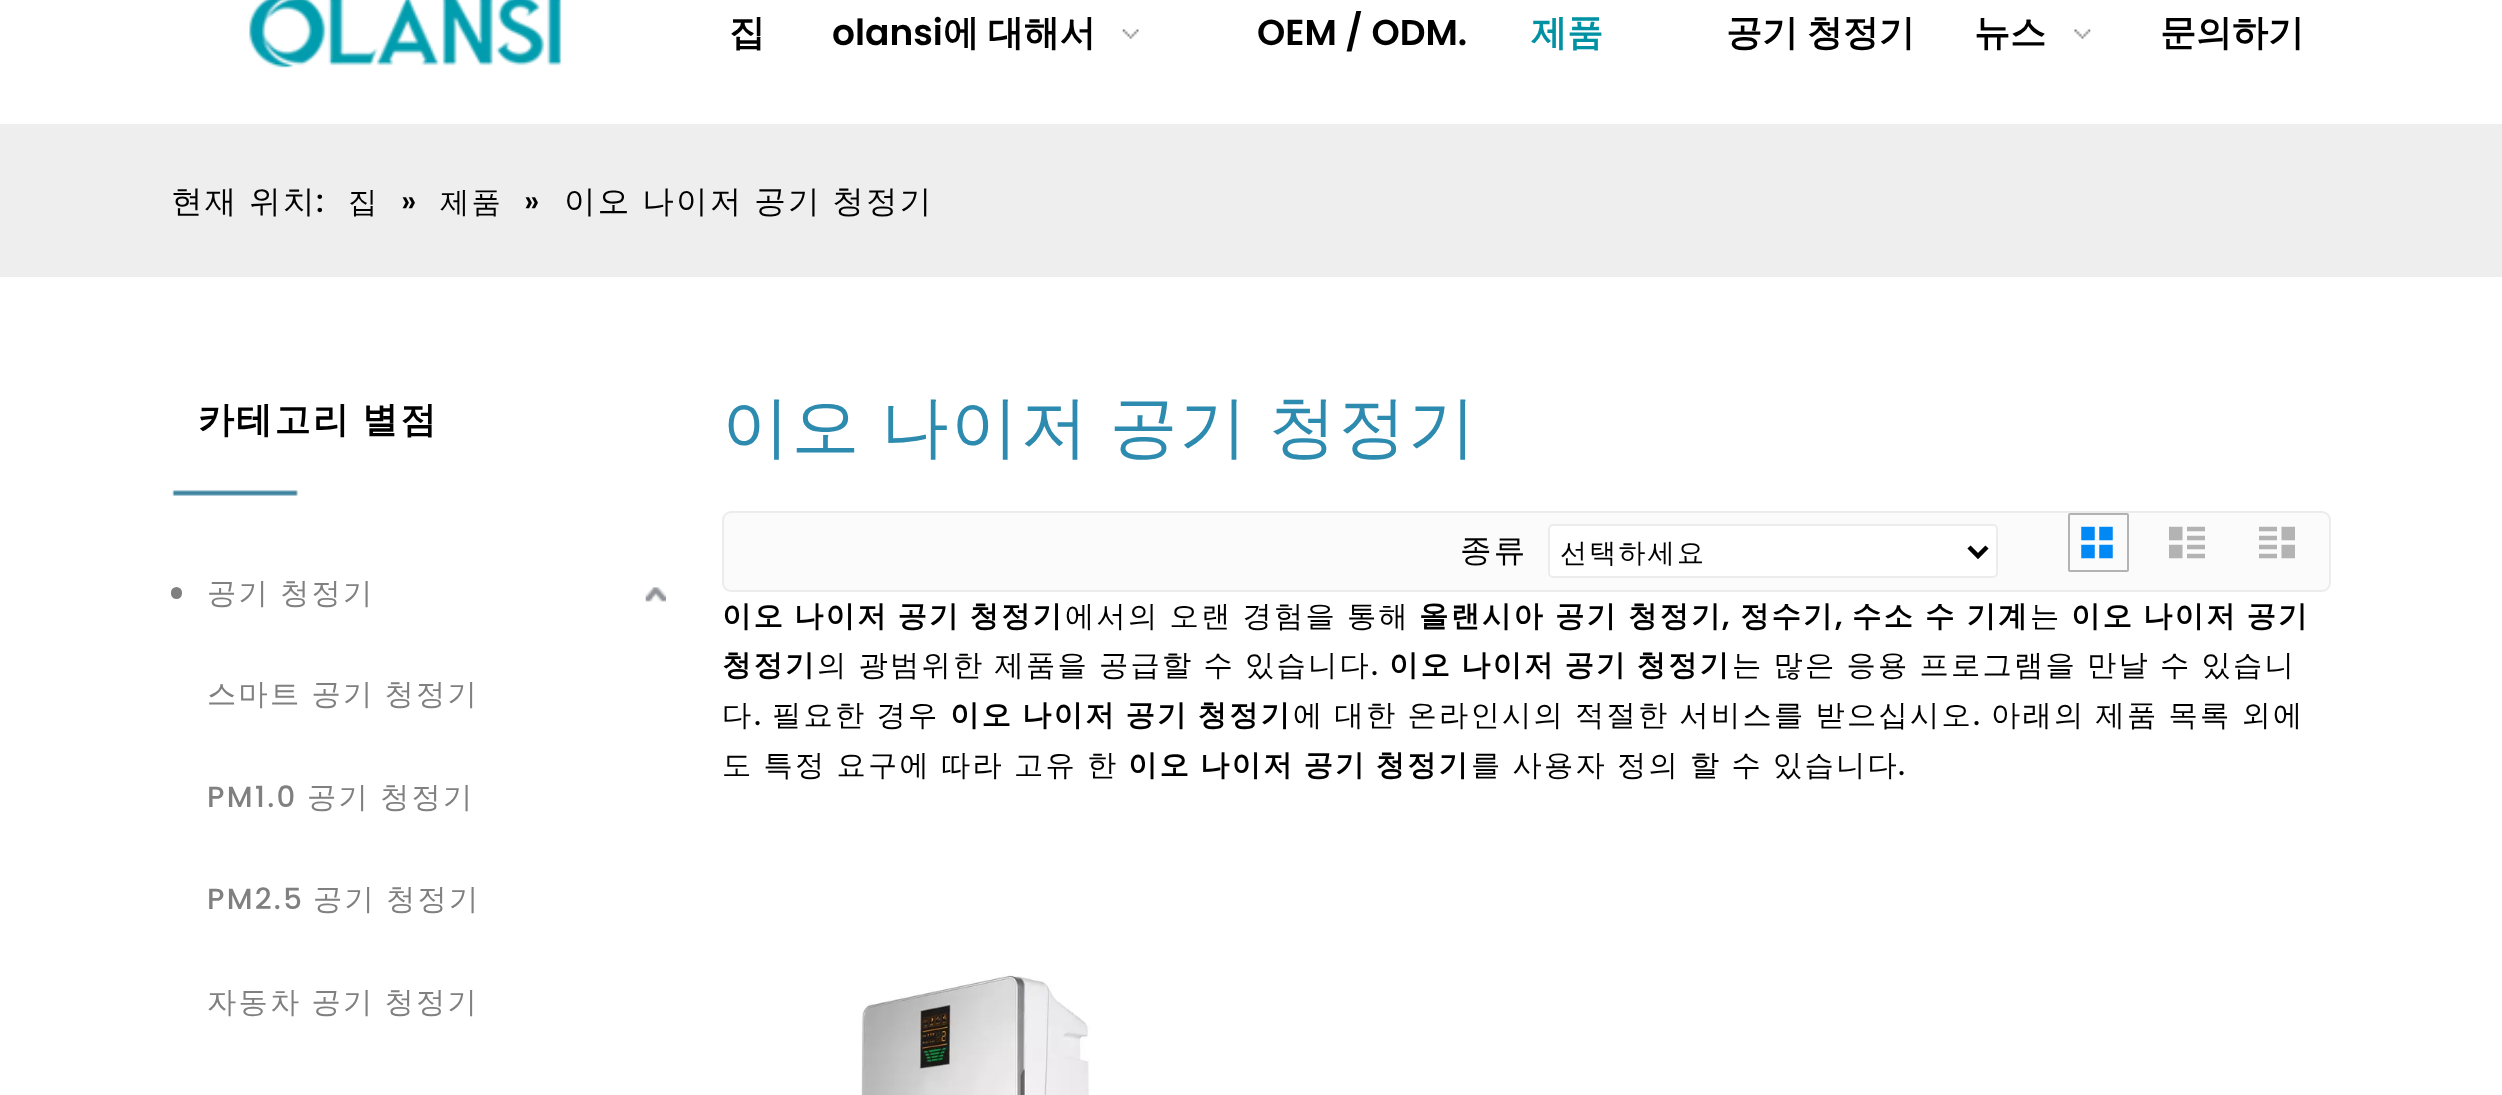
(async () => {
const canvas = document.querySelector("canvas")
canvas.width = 2502
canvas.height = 1095
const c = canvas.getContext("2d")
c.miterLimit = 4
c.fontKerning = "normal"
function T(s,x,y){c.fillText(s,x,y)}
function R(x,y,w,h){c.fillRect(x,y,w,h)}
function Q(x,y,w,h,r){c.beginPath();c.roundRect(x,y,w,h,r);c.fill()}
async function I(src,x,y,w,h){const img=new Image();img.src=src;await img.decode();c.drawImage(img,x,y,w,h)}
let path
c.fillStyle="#fff"
R(0,0,2502,1095)
await I("1.png",249,0,312,68)
c.font="bold 36px WenQuanYi Zen Hei"
c.fillStyle="#000"
T("집",729,45)
c.font="600 36px Poppins"
T("olansi",832,45)
c.wordSpacing="-2px"
c.font="bold 36px WenQuanYi Zen Hei"
T("에 대해서",943,45)
await I("2.png",1122,29,17,10)
c.wordSpacing="0px"
c.font="600 36px Poppins"
T("OEM / ODM.",1257,45)
c.font="bold 36px WenQuanYi Zen Hei"
c.fillStyle="#0092a3"
T("제품",1531,45)
c.wordSpacing="-2px"
c.fillStyle="#000"
T("공기 청정기",1726,45)
c.wordSpacing="0px"
T("뉴스",1974,45)
await I("3.png",2074,29,17,10)
T("문의하기",2160,45)
c.fillStyle="#eee"
R(0,124,2502,153)
c.letterSpacing="2.25px"
c.wordSpacing="-1px"
c.font="500 31.5px WenQuanYi Zen Hei"
c.fillStyle="#000"
T("현재 위치",171,212)
c.wordSpacing="0px"
c.font="500 31.5px Poppins"
T(":",316,212)
c.font="500 29.25px WenQuanYi Zen Hei"
T("집",348,212)
c.font="500 31.5px Poppins"
T("»",401,212)
c.font="500 29.25px WenQuanYi Zen Hei"
T("제품",440,212)
c.font="500 31.5px Poppins"
T("»",524,212)
c.wordSpacing="-1px"
c.font="500 31.5px WenQuanYi Zen Hei"
T("이오 나이저 공기 청정기",564,212)
await I("4.png",172,490,126,6)
c.wordSpacing="-2px"
c.font="bold 36px WenQuanYi Zen Hei"
T("카테고리 별점",198,432)
c.fillStyle="#808080"
Q(171,587,11,12,5.5)
c.wordSpacing="-1px"
c.font="500 29.25px WenQuanYi Zen Hei"
T("공기 청정기",207,603)
await I("5.png",645,587,21,15)
T("스마트 공기 청정기",207,704)
c.wordSpacing="0px"
c.font="500 29.25px Poppins"
T("PM1.0",207,807)
c.wordSpacing="-1px"
c.font="500 29.25px WenQuanYi Zen Hei"
T("공기 청정기",307,807)
c.wordSpacing="0px"
c.font="500 29.25px Poppins"
T("PM2.5",207,909)
c.wordSpacing="-1px"
c.font="500 29.25px WenQuanYi Zen Hei"
T("공기 청정기",313,909)
T("자동차 공기 청정기",207,1012)
c.wordSpacing="-3px"
c.font="500 67.5px WenQuanYi Zen Hei"
c.fillStyle="#2e8bb0"
T("이오 나이저 공기 청정기",722,450)
c.fillStyle="#fbfbfb"
c.beginPath()
c.roundRect(723,512,1607,79,8)
c.fill()
c.strokeStyle="#ececec"
c.lineWidth=2
c.stroke()
c.wordSpacing="0px"
c.font="500 31.5px WenQuanYi Zen Hei"
c.fillStyle="#000"
T("종류",1460,561)
c.fillStyle="#fff"
c.beginPath()
c.roundRect(1549,525,448,52,4)
c.fill()
c.stroke()
path = new Path2D("M1969 547l9 9l9-9")
c.strokeStyle="#000"
c.lineWidth=4.5
c.stroke(path)
c.font="500 27px WenQuanYi Zen Hei"
c.fillStyle="#000"
T("선택하세요",1560,562)
c.beginPath()
c.roundRect(2069,514,59,57,1)
c.strokeStyle="#b3b3b3"
c.lineWidth=2
c.stroke()
await I("6.png",2081,526,32,33)
await I("7.png",2169,526,36,33)
await I("8.png",2259,526,36,33)
c.wordSpacing="-2px"
c.font="bold 29.25px WenQuanYi Zen Hei"
T("이오 나이저 공기 청정기",722,626)
c.wordSpacing="-1px"
c.font="500 29.25px WenQuanYi Zen Hei"
T("에서의 오랜 경험을 통해",1065,626)
c.font="bold 29.25px WenQuanYi Zen Hei"
T("올랜시아 공기 청정기",1419,626)
c.wordSpacing="0px"
c.font="600 29.25px Poppins"
T(",",1722,626)
c.font="bold 29.25px WenQuanYi Zen Hei"
T("정수기",1740,626)
c.font="600 29.25px Poppins"
T(",",1835,626)
c.wordSpacing="-1px"
c.font="bold 29.25px WenQuanYi Zen Hei"
T("수소 수 기계",1852,626)
c.wordSpacing="0px"
c.font="500 29.25px WenQuanYi Zen Hei"
T("는",2030,626)
c.wordSpacing="-2px"
c.font="bold 29.25px WenQuanYi Zen Hei"
T("이오 나이저 공기",2071,626)
c.wordSpacing="0px"
T("청정기",722,675)
c.wordSpacing="-1px"
c.font="500 29.25px WenQuanYi Zen Hei"
T("의 광범위한 제품을 공급할 수 있습니다",817,675)
c.wordSpacing="0px"
c.font="500 29.25px Poppins"
T(".",1371,675)
c.wordSpacing="-2px"
c.font="bold 29.25px WenQuanYi Zen Hei"
T("이오 나이저 공기 청정기",1389,675)
c.wordSpacing="-1px"
c.font="500 29.25px WenQuanYi Zen Hei"
T("는 많은 응용 프로그램을 만날 수 있습니",1732,675)
c.wordSpacing="0px"
T("다",722,725)
c.font="500 29.25px Poppins"
T(".",754,725)
c.wordSpacing="-1px"
c.font="500 29.25px WenQuanYi Zen Hei"
T("필요한 경우",772,725)
c.wordSpacing="-2px"
c.font="bold 29.25px WenQuanYi Zen Hei"
T("이오 나이저 공기 청정기",950,725)
c.wordSpacing="-1px"
c.font="500 29.25px WenQuanYi Zen Hei"
T("에 대한 온라인시의 적절한 서비스를 받으십시오",1293,725)
c.wordSpacing="0px"
c.font="500 29.25px Poppins"
T(".",1973,725)
c.wordSpacing="-1px"
c.font="500 29.25px WenQuanYi Zen Hei"
T("아래의 제품 목록 외에",1991,725)
T("도 특정 요구에 따라 고유 한",722,775)
c.wordSpacing="-2px"
c.font="bold 29.25px WenQuanYi Zen Hei"
T("이오 나이저 공기 청정기",1128,775)
c.wordSpacing="-1px"
c.font="500 29.25px WenQuanYi Zen Hei"
T("를 사용자 정의 할 수 있습니다",1471,775)
c.wordSpacing="0px"
c.font="500 29.25px Poppins"
T(".",1898,775)
await I("9.png",861,974,229,121)
})()
